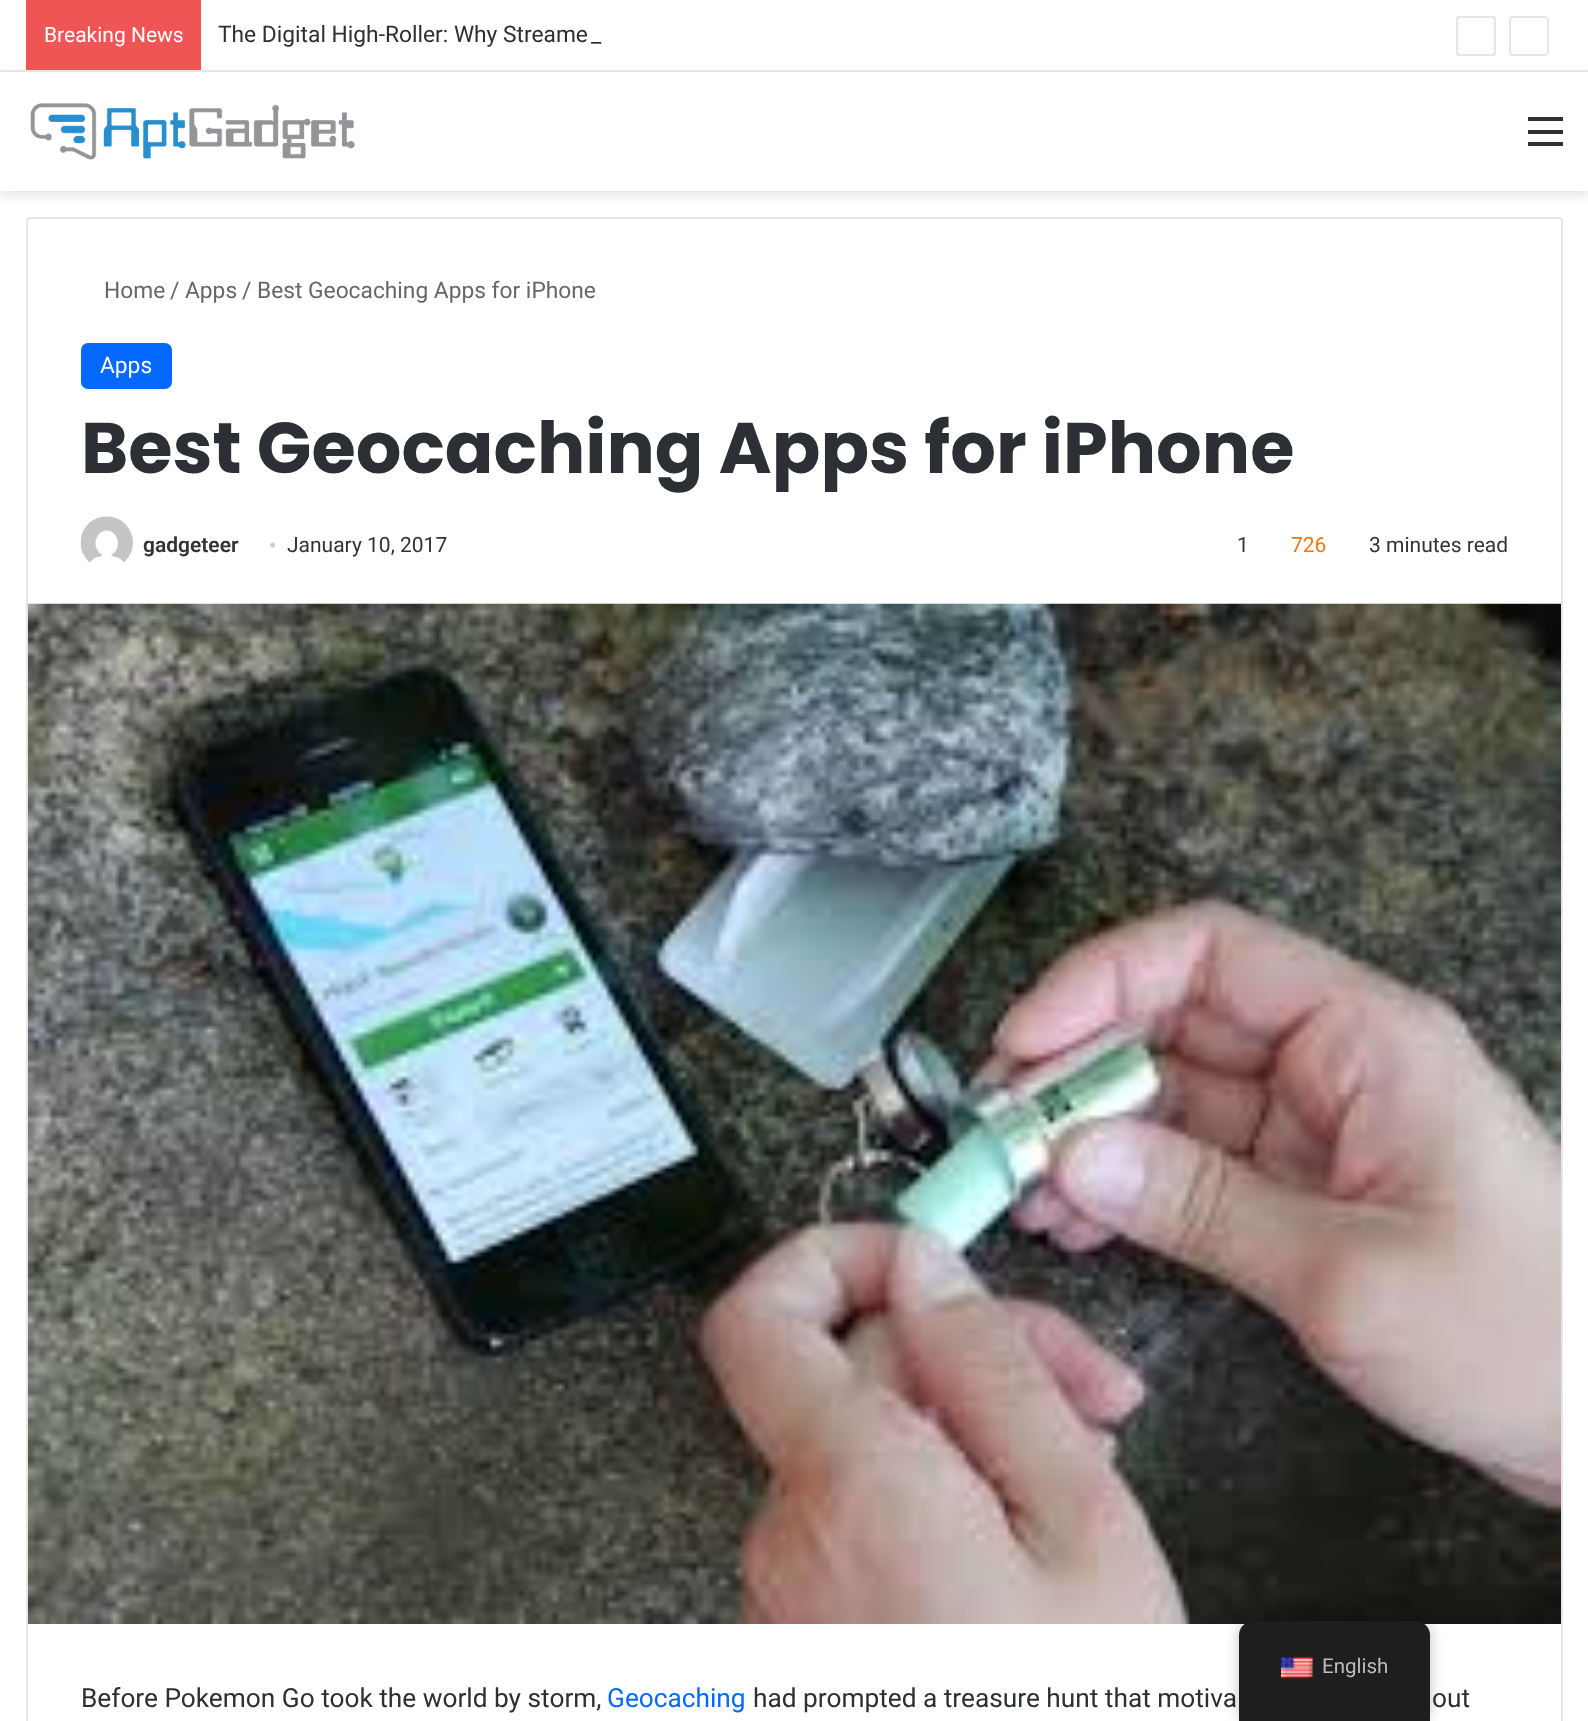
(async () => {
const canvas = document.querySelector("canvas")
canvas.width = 1588
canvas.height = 1721
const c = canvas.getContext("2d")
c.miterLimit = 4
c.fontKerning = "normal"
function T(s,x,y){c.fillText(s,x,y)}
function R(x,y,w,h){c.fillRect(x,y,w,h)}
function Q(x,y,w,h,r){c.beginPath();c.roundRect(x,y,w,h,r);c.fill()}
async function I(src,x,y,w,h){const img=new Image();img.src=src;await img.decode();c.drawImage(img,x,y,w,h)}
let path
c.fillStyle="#fff"
R(0,0,1588,1721)
c.fillStyle="#0000001a"
c.filter="blur(6px)"
c.beginPath()
c.rect(0,77,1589,119)
c.fill()
c.filter="none"
c.fillStyle="#fff"
R(10,69,1569,1)
c.fillStyle="#e6e6e6"
R(0,70,1588,2)
c.fillStyle="#f05555"
R(26,0,175,70)
c.font="21px Roboto"
c.fillStyle="#fff"
T("Breaking News",44,42)
c.font="22.75px Roboto"
c.fillStyle="#2c2f34"
T("The Digital High-Roller: Why Streame",218,42)
T("_",591,42)
c.beginPath()
c.roundRect(1457,17,38,38,3)
c.strokeStyle="#e6e6e6"
c.lineWidth=2
c.stroke()
c.beginPath()
c.roundRect(1510,17,38,38,3)
c.stroke()
c.fillStyle="#fff"
R(0,72,1588,119)
await I("1.png",30,103,325,57)
c.fillStyle="#2c2f34"
R(1528,130,35,4)
R(1528,117,35,4)
R(1528,142,35,4)
c.beginPath()
c.roundRect(27,218,1535,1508,3)
c.stroke()
c.fillStyle="#666"
T("Home",104,298)
T("/",170,298)
T("Apps",185,298)
T("/",242,298)
T("Best Geocaching Apps for iPhone",257,298)
c.fillStyle="#0669ff"
Q(81,343,91,46,7)
c.fillStyle="#fff"
T("Apps",100,373)
c.font="bold 71.75px Poppins"
c.fillStyle="#2c2f34"
T("Best Geocaching Apps for iPhone",81,473)
await I("2.png",80,516,53,47)
c.font="600 21px Roboto"
c.fillStyle="#333"
T("gadgeteer",143,552)
c.font="21px Liberation Serif"
c.fillStyle="#ccc"
T("•",269,552)
c.font="21px Roboto"
c.fillStyle="#333"
T("January 10, 2017",287,552)
T("1",1237,552)
c.fillStyle="#f47512"
T("726",1291,552)
c.fillStyle="#333"
T("3 minutes read",1369,552)
await I("3.png",28,603,1533,1021)
c.font="26.25px Roboto"
c.fillStyle="#2c2f34"
T("Before Pokemon Go took the world by storm,",81,1707)
c.fillStyle="#0669ff"
T("Geocaching",607,1707)
c.fillStyle="#2c2f34"
T("had prompted a treasure hunt that motiva",753,1707)
T("out",1432,1707)
c.fillStyle="#00000040"
c.filter="blur(7px)"
c.beginPath()
c.roundRect(1239,1621,191,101,14)
c.fill()
c.filter="none"
c.fillStyle="#1e1e1e"
path = new Path2D("M1253 1621h163c7.5 0 14 6.5 14 14v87h-191v-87c0-7.5 6.5-14 14-14z")
c.fill(path)
await I("4.png",1281,1656,32,23)
c.font="20.5px Roboto"
c.fillStyle="#bdbdbd"
T("English",1322,1673)
})()
